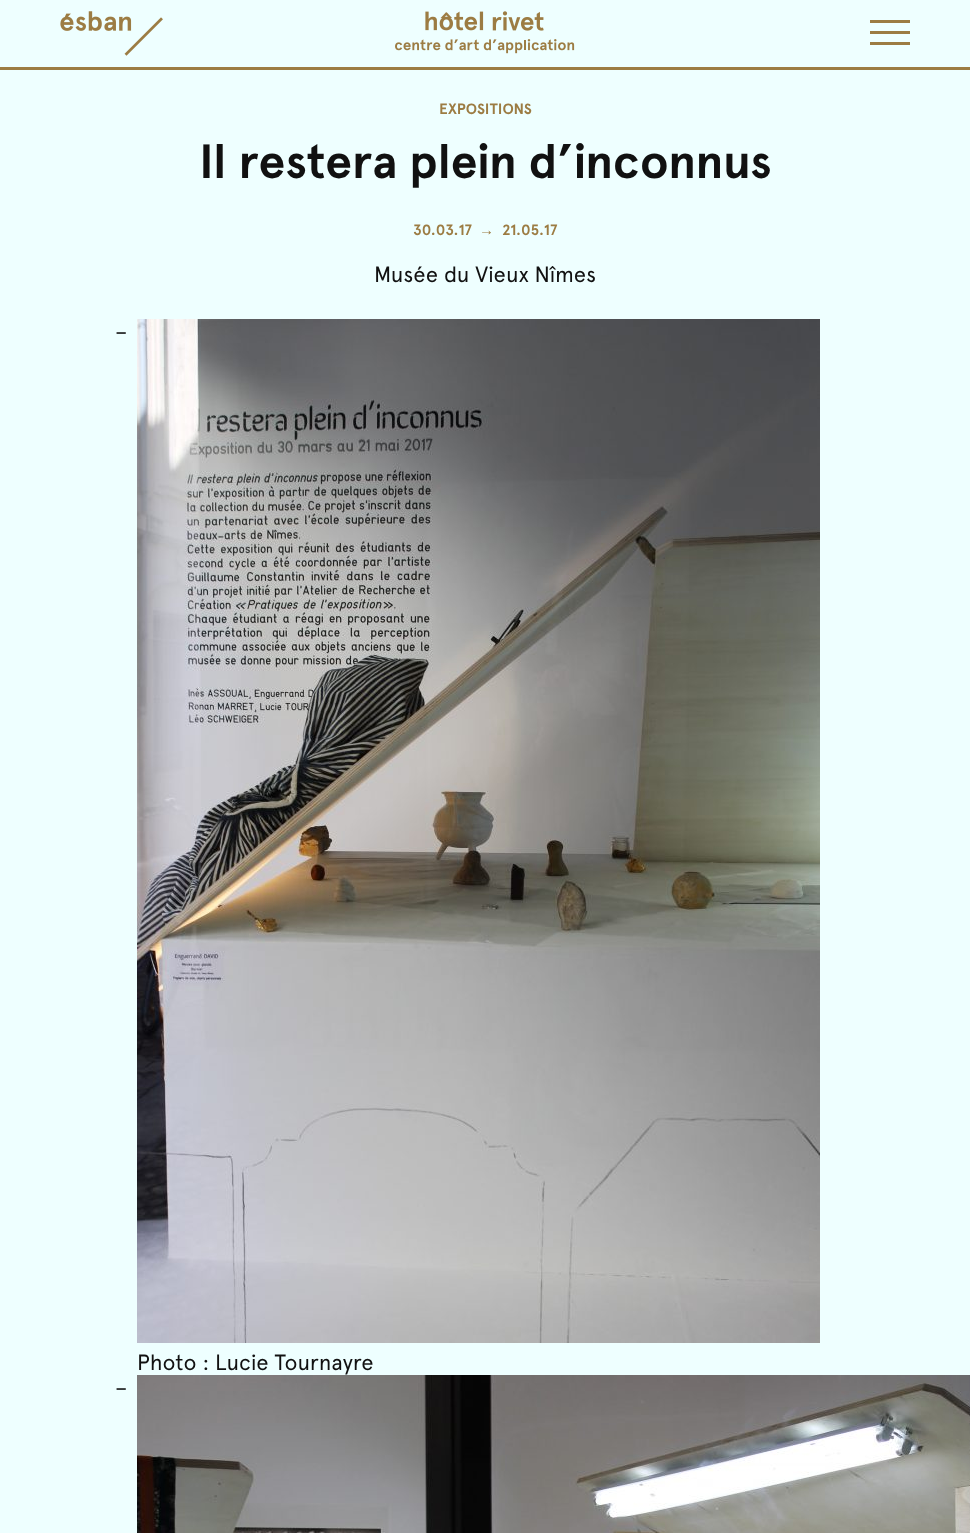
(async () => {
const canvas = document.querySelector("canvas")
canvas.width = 970
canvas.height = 1533
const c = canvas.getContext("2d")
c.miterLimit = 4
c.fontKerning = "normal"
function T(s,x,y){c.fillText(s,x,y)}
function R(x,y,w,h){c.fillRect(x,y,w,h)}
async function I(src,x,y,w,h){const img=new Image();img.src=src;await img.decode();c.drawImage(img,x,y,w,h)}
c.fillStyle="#eff"
R(0,0,970,1533)
c.fillStyle="#9c7c43"
R(0,67,970,3)
await I("1.png",60,11,103,45)
await I("2.png",395,11,180,43)
R(870,20,40,3)
R(870,31,40,3)
R(870,42,40,3)
c.font="bold 15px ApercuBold"
T("EXPOSITIONS",439,114)
c.font="bold 48px ApercuBold"
c.fillStyle="#111"
T("Il restera plein d’inconnus",199,178)
c.font="bold 15px ApercuBold"
c.fillStyle="#9c7c43"
T("30.03.17",413,235)
c.font="15px Liberation Serif"
T("→",479,235)
c.font="bold 15px ApercuBold"
T("21.05.17",502,235)
c.font="22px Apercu"
c.fillStyle="#111"
T("Musée du Vieux Nîmes",374,282)
T("–",115,340)
await I("3.png",137,319,683,1024)
T("Photo : Lucie Tournayre",137,1370)
T("–",115,1396)
await I("4.png",137,1375,833,158)
})()
